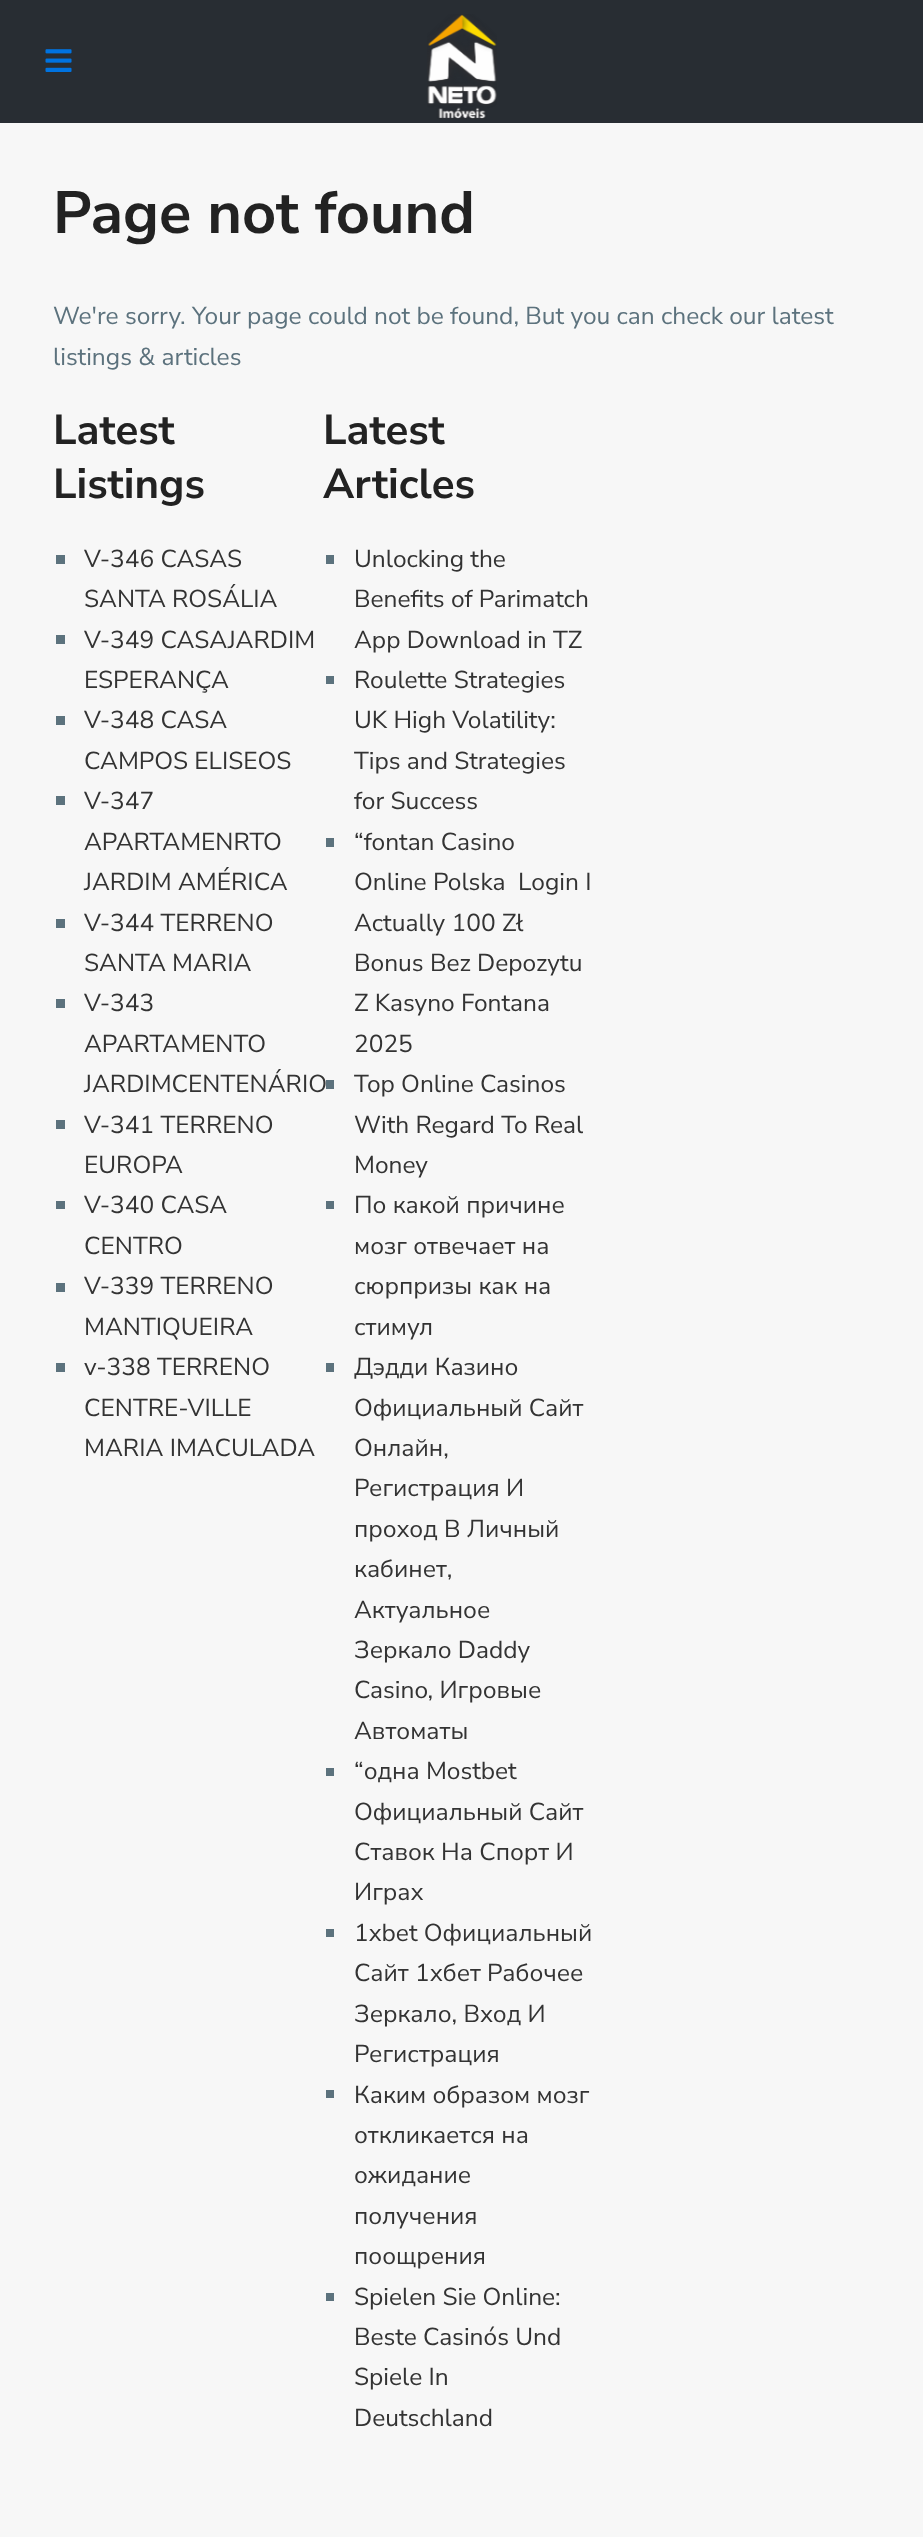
(async () => {
const canvas = document.querySelector("canvas")
canvas.width = 923
canvas.height = 2537
const c = canvas.getContext("2d")
c.miterLimit = 4
c.fontKerning = "normal"
function T(s,x,y){c.fillText(s,x,y)}
function R(x,y,w,h){c.fillRect(x,y,w,h)}
async function I(src,x,y,w,h){const img=new Image();img.src=src;await img.decode();c.drawImage(img,x,y,w,h)}
c.fillStyle="#f7f7f7"
R(0,0,923,2537)
c.fillStyle="#282d33"
R(0,0,923,123)
await I("1.png",45,49,27,23)
await I("2.png",427,14,70,105)
c.font="bold 59.5px Nunito Sans"
c.fillStyle="#222"
T("Page not found",53,233)
c.font="24.5px Nunito Sans"
c.fillStyle="#5c727d"
T("We're sorry. Your page could not be found, But you can check our latest",53,324)
T("listings & articles",53,365)
c.font="bold 42px Nunito Sans"
c.fillStyle="#222"
T("Latest",53,444)
T("Listings",53,498)
c.fillStyle="#5c727d"
R(56,555,9,9)
c.font="24.5px Nunito Sans"
c.fillStyle="#333"
T("V-346 CASAS",84,567)
T("SANTA ROSÁLIA",84,607)
c.fillStyle="#5c727d"
R(56,635,9,9)
c.fillStyle="#333"
T("V-349 CASAJARDIM",84,648)
T("ESPERANÇA",84,688)
c.fillStyle="#5c727d"
R(56,716,9,9)
c.fillStyle="#333"
T("V-348 CASA",84,728)
T("CAMPOS ELISEOS",84,769)
c.fillStyle="#5c727d"
R(56,796,9,9)
c.fillStyle="#333"
T("V-347",84,809)
T("APARTAMENRTO",84,850)
T("JARDIM AMÉRICA",84,890)
c.fillStyle="#5c727d"
R(56,919,9,9)
c.fillStyle="#333"
T("V-344 TERRENO",84,931)
T("SANTA MARIA",84,971)
c.fillStyle="#5c727d"
R(56,999,9,9)
c.fillStyle="#333"
T("V-343",84,1011)
T("APARTAMENTO",84,1052)
T("JARDIMCENTENÁRIO",84,1092)
c.fillStyle="#5c727d"
R(56,1120,9,9)
c.fillStyle="#333"
T("V-341 TERRENO",84,1133)
T("EUROPA",84,1173)
c.fillStyle="#5c727d"
R(56,1201,9,8)
c.fillStyle="#333"
T("V-340 CASA",84,1213)
T("CENTRO",84,1254)
c.fillStyle="#5c727d"
R(56,1283,9,9)
c.fillStyle="#333"
T("V-339 TERRENO",84,1294)
T("MANTIQUEIRA",84,1335)
c.fillStyle="#5c727d"
R(56,1363,9,9)
c.fillStyle="#333"
T("v-338 TERRENO",84,1375)
T("CENTRE-VILLE",84,1416)
T("MARIA IMACULADA",84,1456)
c.font="bold 42px Nunito Sans"
c.fillStyle="#222"
T("Latest",323,444)
T("Articles",323,498)
c.fillStyle="#5c727d"
R(326,555,8,9)
c.font="24.5px Nunito Sans"
c.fillStyle="#333"
T("Unlocking the",354,567)
T("Benefits of Parimatch",354,607)
T("App Download in TZ",354,648)
c.fillStyle="#5c727d"
R(326,676,8,8)
c.fillStyle="#333"
T("Roulette Strategies",354,688)
T("UK High Volatility:",354,728)
T("Tips and Strategies",354,769)
T("for Success",354,809)
c.fillStyle="#5c727d"
R(326,838,8,9)
c.fillStyle="#333"
T("“fontan Casino",354,850)
T("Online Polska ️ Login I",354,890)
T("Actually 100 Zł",354,931)
T("Bonus Bez Depozytu",354,971)
T("Z Kasyno Fontana",354,1011)
T("2025",354,1052)
c.fillStyle="#5c727d"
R(326,1080,8,9)
c.fillStyle="#333"
T("Top Online Casinos",354,1092)
T("With Regard To Real",354,1133)
T("Money",354,1173)
c.fillStyle="#5c727d"
R(326,1201,8,8)
c.fillStyle="#333"
T("По какой причине",354,1213)
T("мозг отвечает на",354,1254)
T("сюрпризы как на",354,1294)
T("стимул",354,1335)
c.fillStyle="#5c727d"
R(326,1363,8,9)
c.fillStyle="#333"
T("Дэдди Казино",354,1375)
T("Официальный Сайт",354,1416)
T("Онлайн,",354,1456)
T("Регистрация И",354,1496)
T("проход В Личный",354,1537)
T("кабинет,",354,1577)
T("Актуальное",354,1618)
T("Зеркало Daddy",354,1658)
T("Casino, Игровые",354,1698)
T("Автоматы",354,1739)
c.fillStyle="#5c727d"
R(326,1768,8,8)
c.fillStyle="#333"
T("“одна Mostbet",354,1779)
T("Официальный Сайт",354,1820)
T("Ставок На Спорт И",354,1860)
T("Играх",354,1900)
c.fillStyle="#5c727d"
R(326,1929,8,8)
c.fillStyle="#333"
T("1xbet Официальный",354,1941)
T("Сайт 1хбет Рабочее",354,1981)
T("Зеркало, Вход И",354,2022)
T("Регистрация",354,2062)
c.fillStyle="#5c727d"
R(326,2090,8,8)
c.fillStyle="#333"
T("Каким образом мозг",354,2103)
T("откликается на",354,2143)
T("ожидание",354,2183)
T("получения",354,2224)
T("поощрения",354,2264)
c.fillStyle="#5c727d"
R(326,2293,8,8)
c.fillStyle="#333"
T("Spielen Sie Online:",354,2305)
T("Beste Casinós Und",354,2345)
T("Spiele In",354,2385)
T("Deutschland",354,2426)
})()
